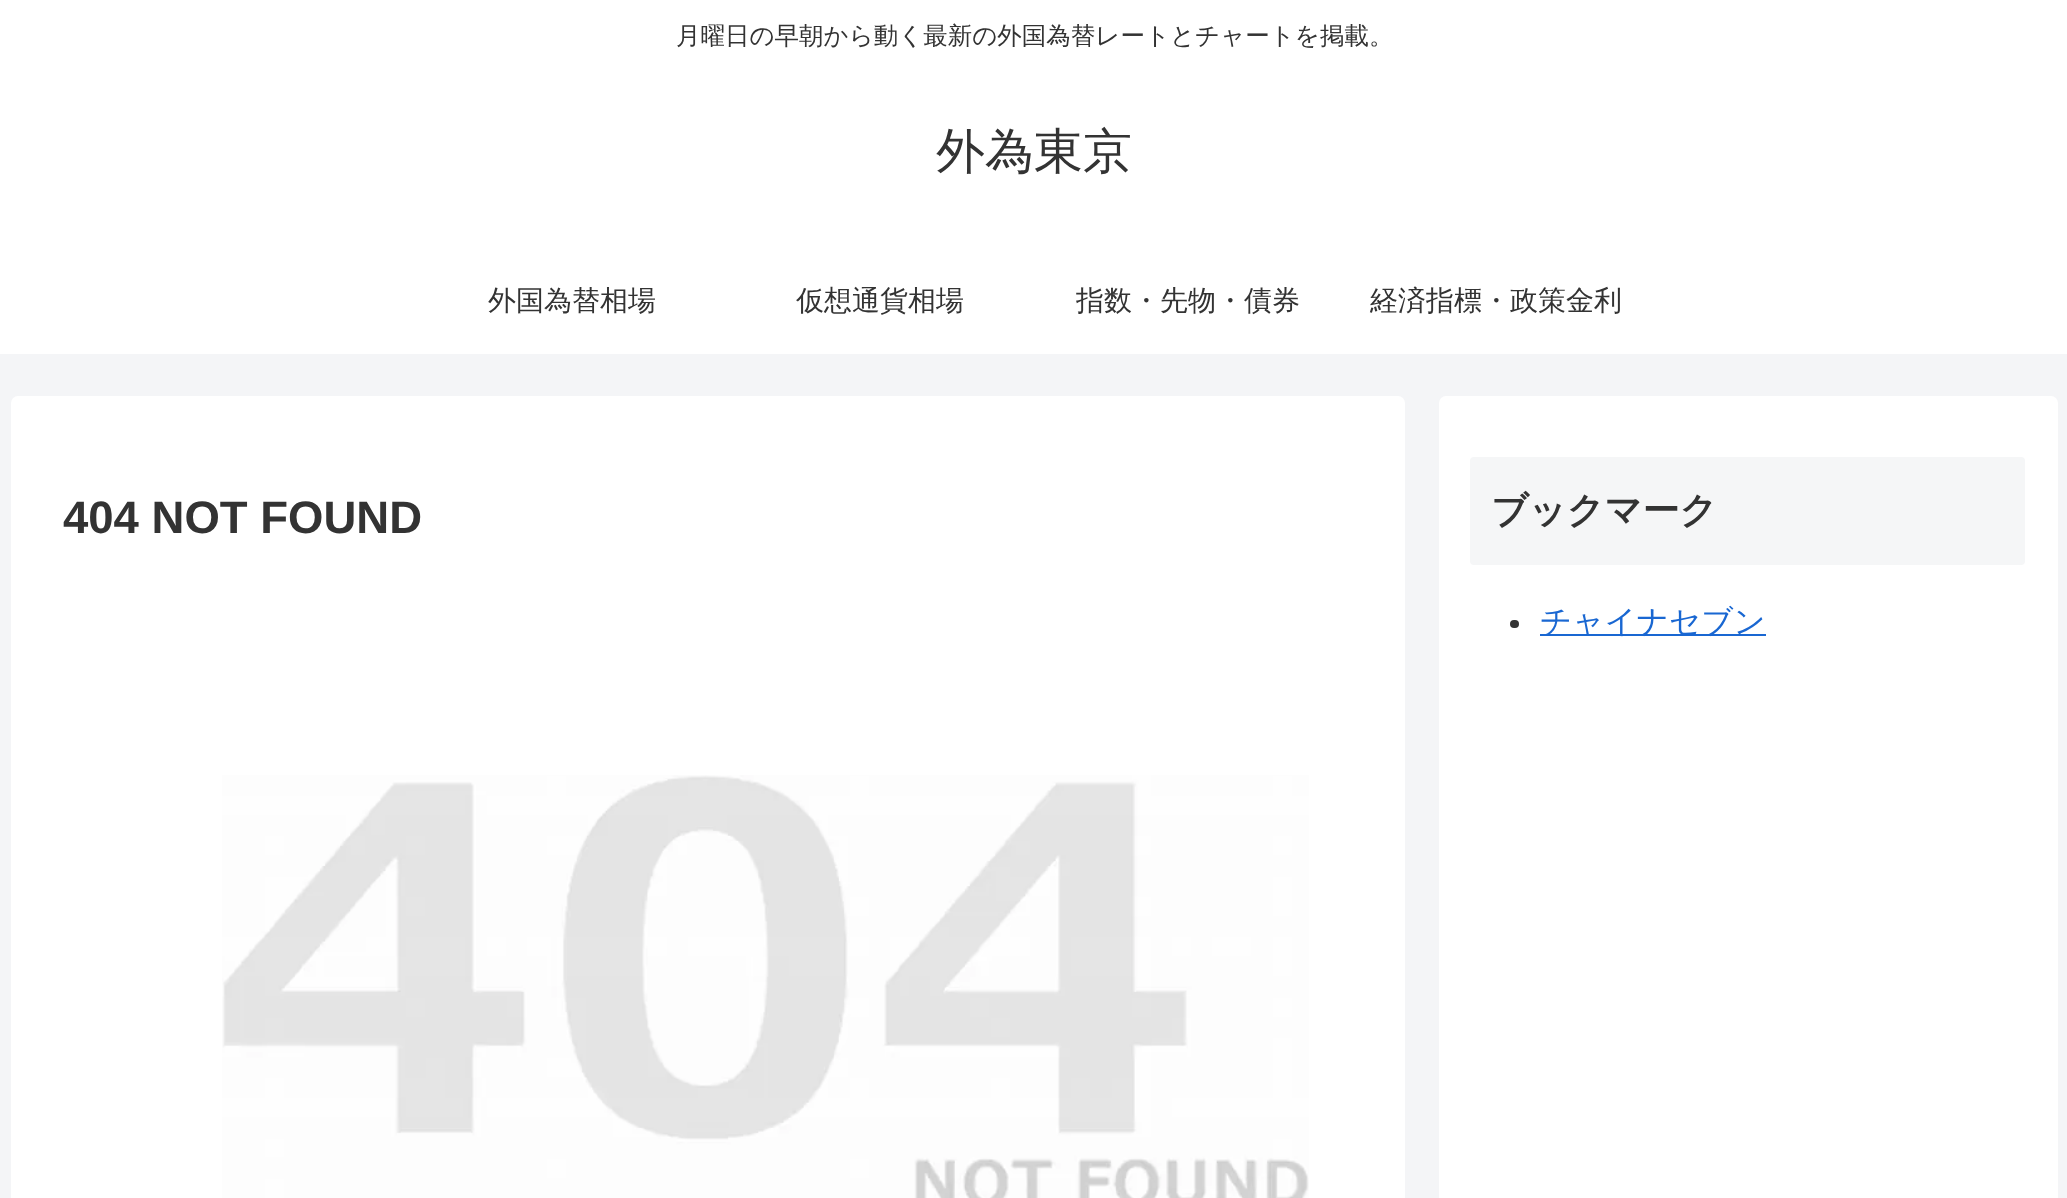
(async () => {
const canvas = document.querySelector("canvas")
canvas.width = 2067
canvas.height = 1198
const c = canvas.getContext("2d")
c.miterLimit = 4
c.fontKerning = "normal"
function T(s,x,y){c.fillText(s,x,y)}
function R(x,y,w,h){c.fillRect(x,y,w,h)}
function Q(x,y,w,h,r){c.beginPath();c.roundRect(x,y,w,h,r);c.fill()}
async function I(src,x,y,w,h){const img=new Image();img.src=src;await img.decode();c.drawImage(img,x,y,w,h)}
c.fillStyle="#f4f5f7"
R(0,0,2067,1198)
c.fillStyle="#fff"
R(0,0,2067,354)
c.font="500 24.5px WenQuanYi Zen Hei"
c.fillStyle="#333"
T("月曜日の早朝から動く最新の外国為替レートとチャートを掲載。",676,44)
c.font="500 49px WenQuanYi Zen Hei"
T("外為東京",936,168)
c.font="500 28px WenQuanYi Zen Hei"
T("外国為替相場",488,310)
T("仮想通貨相場",796,310)
T("指数・先物・債券",1076,310)
T("経済指標・政策金利",1370,310)
c.fillStyle="#fff"
Q(11,396,1394,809,7)
c.font="bold 45.5px Liberation Sans"
c.fillStyle="#333"
T("404 NOT FOUND",63,533)
await I("1.png",222,775,1087,423)
c.fillStyle="#fff"
Q(1439,396,619,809,7)
c.fillStyle="#f5f6f7"
Q(1470,457,555,108,4)
c.font="bold 37px WenQuanYi Zen Hei"
c.fillStyle="#333"
T("ブックマーク",1491,523)
Q(1510,620,9,8,4)
c.fillStyle="#1967d2"
R(1540,634,226,2)
c.font="500 31.5px WenQuanYi Zen Hei"
T("チャイナセブン",1540,632)
})()
